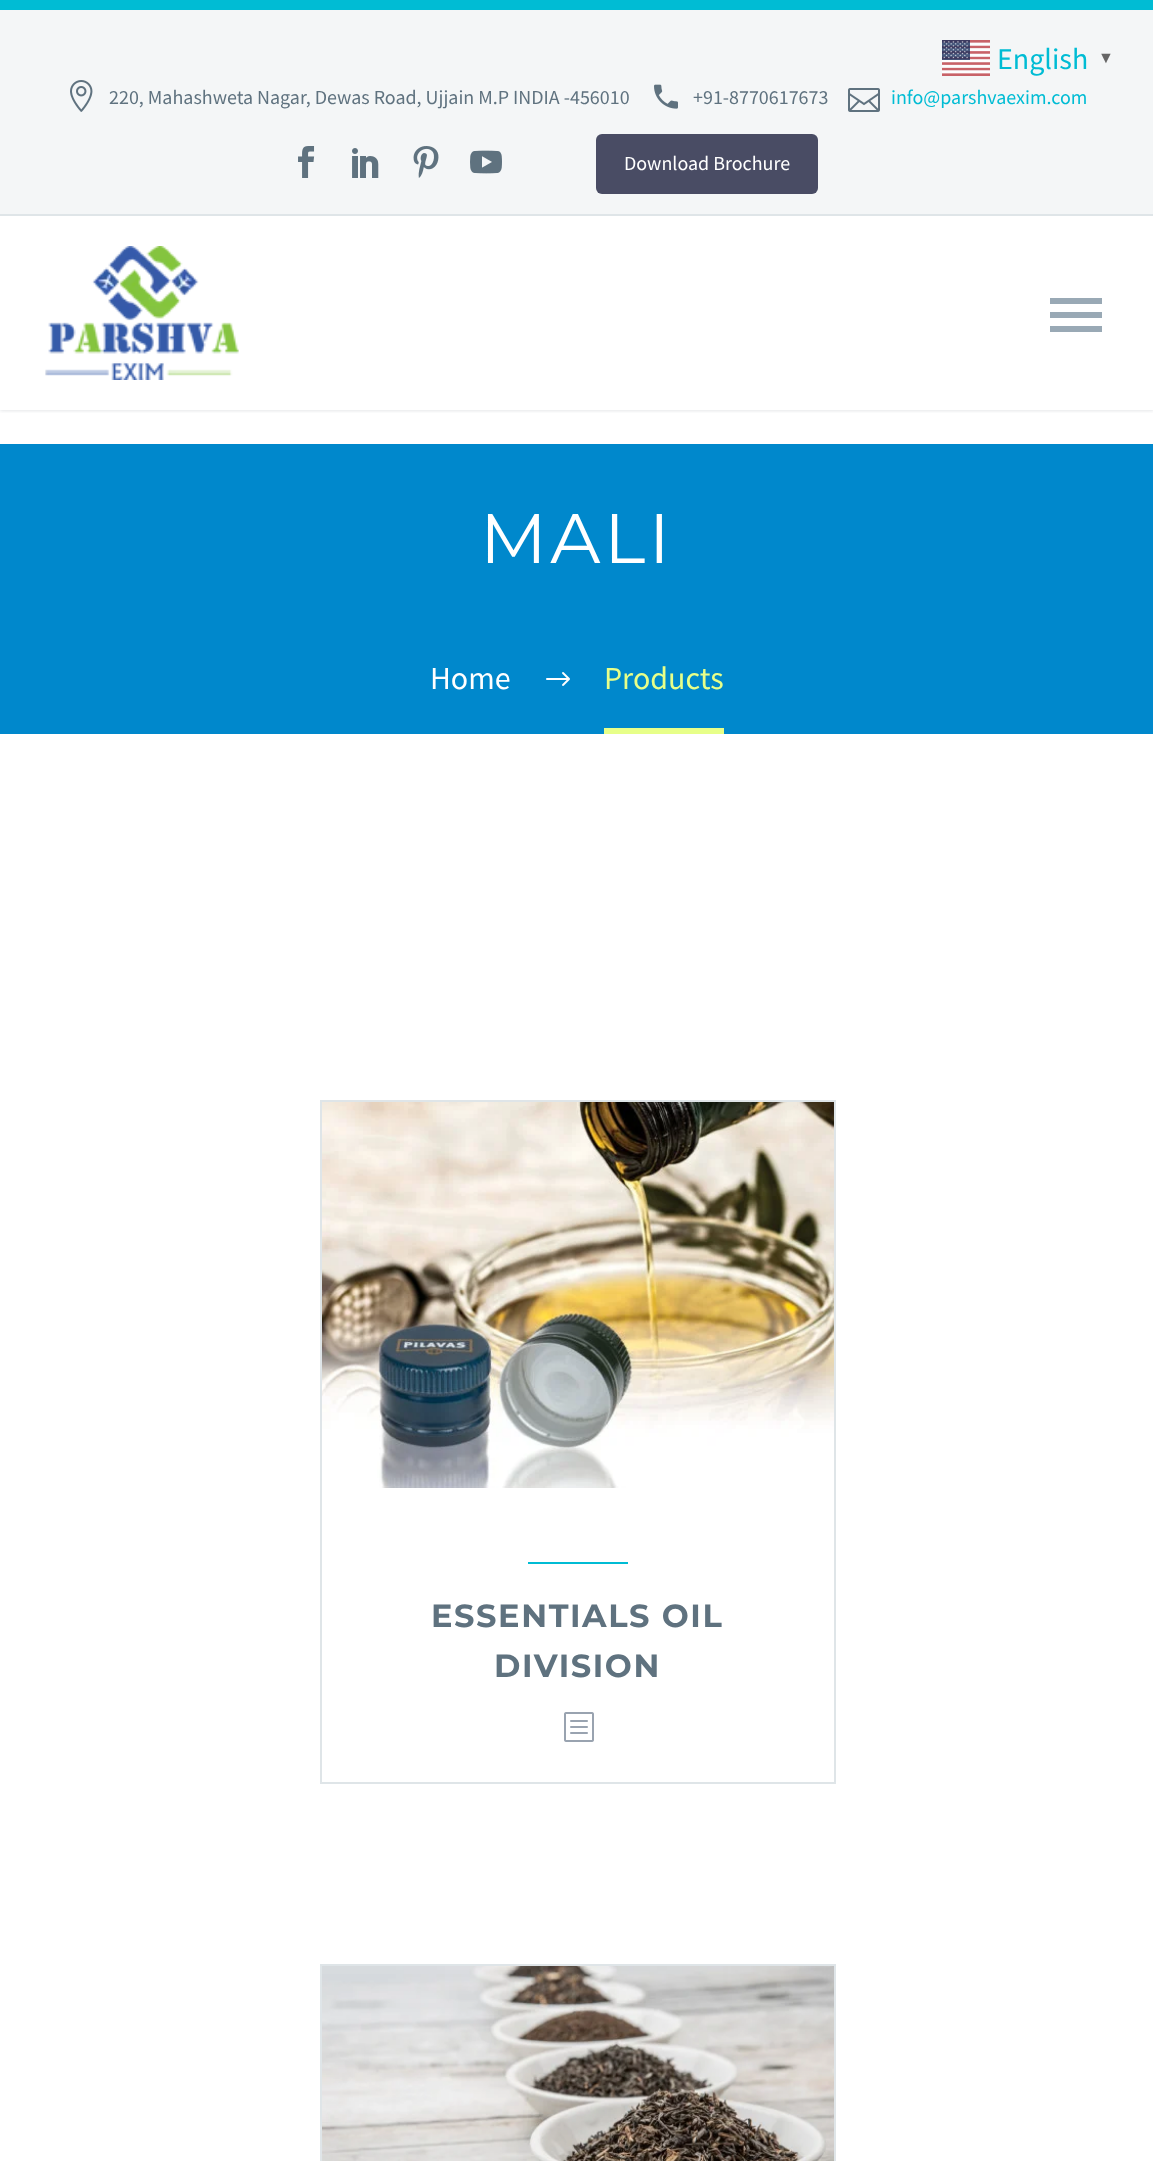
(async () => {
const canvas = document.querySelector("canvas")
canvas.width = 1153
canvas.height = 2161
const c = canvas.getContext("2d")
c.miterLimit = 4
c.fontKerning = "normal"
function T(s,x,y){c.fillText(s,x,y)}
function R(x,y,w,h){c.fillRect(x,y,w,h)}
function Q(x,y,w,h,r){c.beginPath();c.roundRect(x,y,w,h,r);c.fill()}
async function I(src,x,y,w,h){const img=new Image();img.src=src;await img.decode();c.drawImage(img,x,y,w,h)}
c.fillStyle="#fff"
R(0,0,1153,2161)
c.save()
c.beginPath()
c.rect(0,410,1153,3)
c.clip()
c.fillStyle="#38455433"
c.filter="blur(2px)"
c.beginPath()
c.rect(0,0,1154,410)
c.fill()
c.filter="none"
c.restore()
c.fillStyle="#f4f6f7"
R(0,10,1153,204)
await I("1.png",942,40,48,36)
c.font="30px Source Sans Pro"
c.fillStyle="#00bcd4"
T("English",997,69)
c.font="bold 16px Liberation Serif"
c.fillStyle="#666"
T("▼",1098,63)
c.fillStyle="#00bcd4"
R(0,0,1153,10)
c.fillStyle="#dfe5e8"
R(0,214,1153,2)
await I("2.png",70,80,23,32)
c.font="20px Source Sans Pro"
c.fillStyle="#5f727f"
T("220, Mahashweta Nagar, Dewas Road, Ujjain M.P INDIA -456010",109,104)
await I("3.png",654,84,24,25)
T("+91-8770617673",693,104)
await I("4.png",848,88,32,24)
c.fillStyle="#00bcd4"
T("info@parshvaexim.com",891,104)
await I("5.png",298,146,17,32)
await I("6.png",352,148,27,30)
await I("7.png",413,146,26,32)
await I("8.png",470,150,32,24)
c.fillStyle="#494c64"
Q(596,134,222,60,6)
c.fillStyle="#fff"
T("Download Brochure",624,170)
await I("9.png",45,246,194,134)
c.fillStyle="#99a9b5"
R(1050,298,52,6)
R(1050,312,52,6)
R(1050,326,52,6)
c.fillStyle="#08c"
R(0,444,1153,290)
c.letterSpacing="3.5px"
c.font="70px Montserrat"
c.fillStyle="#fff"
T("MALI",480,563)
c.letterSpacing="0px"
c.font="32px Source Sans Pro"
T("Home",430,689)
await I("10.png",546,672,24,14)
c.fillStyle="#e7ff89"
R(604,728,120,6)
T("Products",604,689)
c.strokeStyle="#dfe5e8"
c.lineWidth=2
c.strokeRect(321,1101,514,682)
await I("11.png",322,1102,512,386)
c.fillStyle="#00bcd4"
R(528,1562,100,2)
c.letterSpacing="1.6px"
c.font="bold 32px Montserrat"
c.fillStyle="#5f727f"
T("ESSENTIALS OIL",431,1627)
T("DIVISION",494,1677)
await I("12.png",564,1712,30,30)
c.strokeRect(321,1965,514,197)
await I("13.png",322,1966,512,195)
})()
